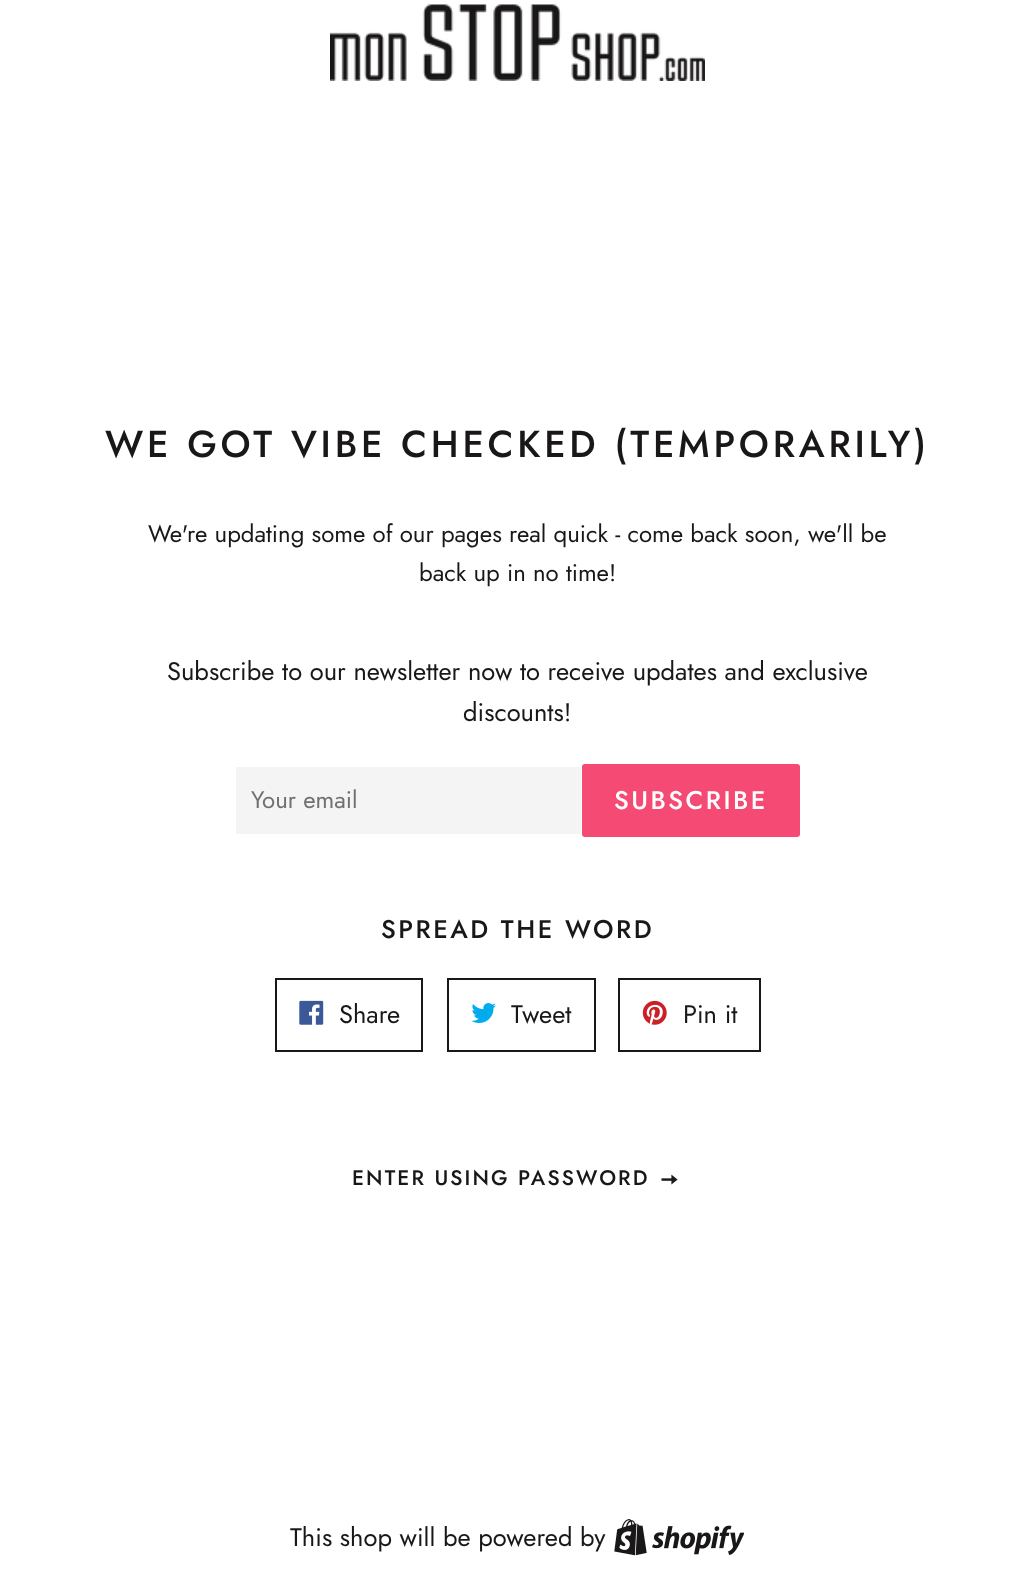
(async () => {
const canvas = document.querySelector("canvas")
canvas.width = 1035
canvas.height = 1588
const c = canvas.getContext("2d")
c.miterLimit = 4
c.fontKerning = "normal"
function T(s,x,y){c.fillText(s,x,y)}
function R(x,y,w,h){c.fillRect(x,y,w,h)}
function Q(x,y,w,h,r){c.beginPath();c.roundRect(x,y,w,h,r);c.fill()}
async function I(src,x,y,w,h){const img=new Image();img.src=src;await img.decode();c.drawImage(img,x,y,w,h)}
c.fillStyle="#fff"
R(0,0,1035,1588)
await I("1.png",330,4,375,77)
c.letterSpacing="3.75px"
c.font="500 37.5px Jost"
c.fillStyle="#191717"
T("WE GOT VIBE CHECKED (TEMPORARILY)",105,457)
c.letterSpacing="0px"
c.font="24px Jost"
T("We're updating some of our pages real quick - come back soon, we'll be",148,542)
T("back up in no time!",419,581)
c.font="25.5px Jost"
T("Subscribe to our newsletter now to receive updates and exclusive",167,680)
T("discounts!",463,721)
c.fillStyle="#f4f4f4"
R(236,767,345,67)
c.font="24px Jost"
c.fillStyle="#716f6f"
T("Your email",251,808)
c.fillStyle="#f44a73"
Q(582,764,218,73,3)
c.letterSpacing="2.5px"
c.font="500 25.5px Jost"
c.fillStyle="#fff"
T("SUBSCRIBE",614,809)
c.fillStyle="#191717"
T("SPREAD THE WORD",381,938)
c.strokeStyle="#191717"
c.lineWidth=2
c.strokeRect(276,979,146,72)
await I("2.png",299,1000,25,25)
c.letterSpacing="0px"
c.font="25.5px Jost"
T("Share",339,1023)
c.strokeRect(448,979,147,72)
await I("3.png",471,1003,25,20)
T("Tweet",511,1023)
c.strokeRect(619,979,141,72)
await I("4.png",642,1000,25,25)
T("Pin it",683,1023)
c.letterSpacing="2.1px"
c.font="500 21px Jost"
T("ENTER USING PASSWORD",352,1185)
await I("5.png",661,1174,17,11)
c.letterSpacing="0px"
c.font="25.5px Jost"
T("This shop will be powered by",290,1546)
await I("6.png",614,1519,130,37)
})()
